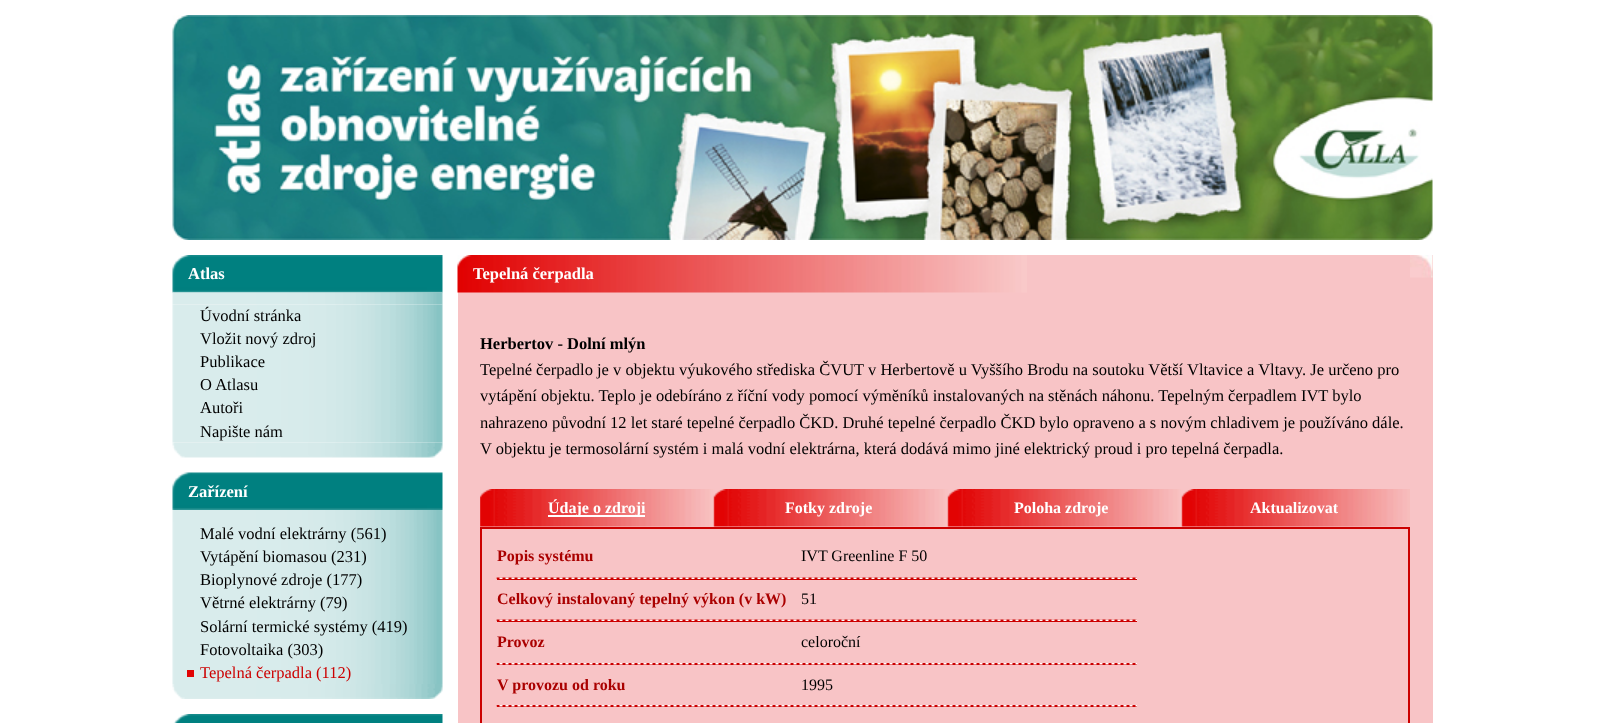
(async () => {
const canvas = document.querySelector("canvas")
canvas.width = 1605
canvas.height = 723
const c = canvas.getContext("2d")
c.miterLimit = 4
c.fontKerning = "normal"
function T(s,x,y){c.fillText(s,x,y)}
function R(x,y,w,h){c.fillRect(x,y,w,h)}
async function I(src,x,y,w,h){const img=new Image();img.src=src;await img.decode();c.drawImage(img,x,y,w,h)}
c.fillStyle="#fff"
R(0,0,1605,723)
await I("1.png",172,15,1261,225)
await I("2.png",172,255,271,38)
c.font="bold 16.5px Liberation Serif"
T("Atlas",188,279)
await I("3.png",172,292,271,13)
await I("4.png",172,304,271,139)
c.font="16.5px Liberation Serif"
c.fillStyle="#000"
T("Úvodní stránka",200,321)
T("Vložit nový zdroj",200,344)
T("Publikace",200,367)
T("O Atlasu",200,390)
T("Autoři",200,413)
T("Napište nám",200,437)
await I("5.png",172,442,271,16)
await I("6.png",172,472,271,38)
c.font="bold 16.5px Liberation Serif"
c.fillStyle="#fff"
T("Zařízení",188,497)
await I("7.png",172,510,271,12)
await I("8.png",172,522,271,162)
c.font="16.5px Liberation Serif"
c.fillStyle="#000"
T("Malé vodní elektrárny (561)",200,539)
T("Vytápění biomasou (231)",200,562)
T("Bioplynové zdroje (177)",200,585)
T("Větrné elektrárny (79)",200,608)
T("Solární termické systémy (419)",200,632)
T("Fotovoltaika (303)",200,655)
c.fillStyle="#e10404"
R(187,670,7,7)
c.fillStyle="#c00"
T("Tepelná čerpadla (112)",200,678)
await I("9.png",172,684,271,15)
await I("10.png",173,714,270,9)
c.fillStyle="#f8c4c6"
R(458,255,975,468)
await I("11.png",457,255,570,38)
c.font="bold 16.5px Liberation Serif"
c.fillStyle="#fff"
T("Tepelná čerpadla",473,279)
await I("12.png",1410,255,23,23)
c.fillStyle="#000"
T("Herbertov - Dolní mlýn",480,349)
c.font="16.5px Liberation Serif"
T("Tepelné čerpadlo je v objektu výukového střediska ČVUT v Herbertově u Vyššího Brodu na soutoku Větší Vltavice a Vltavy. Je určeno pro",480,375)
T("vytápění objektu. Teplo je odebíráno z říční vody pomocí výměníků instalovaných na stěnách náhonu. Tepelným čerpadlem IVT bylo",480,401)
T("nahrazeno původní 12 let staré tepelné čerpadlo ČKD. Druhé tepelné čerpadlo ČKD bylo opraveno a s novým chladivem je používáno dále.",480,428)
T("V objektu je termosolární systém i malá vodní elektrárna, která dodává mimo jiné elektrický proud i pro tepelná čerpadla.",480,454)
await I("13.png",480,489,930,38)
c.fillStyle="#fff"
R(548,515,97,2)
c.font="bold 16px Liberation Serif"
T("Údaje o zdroji",548,513)
T("Fotky zdroje",785,513)
T("Poloha zdroje",1014,513)
T("Aktualizovat",1250,513)
c.strokeStyle="#c00"
c.lineWidth=2
c.strokeRect(481,528,928,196)
c.fillStyle="#a00"
T("Popis systému",497,561)
c.font="16px Liberation Serif"
c.fillStyle="#000"
T("IVT Greenline F 50",801,561)
c.fillStyle="#c00"
R(497,579,640,1)
await I("14.png",496,577,641,2)
c.font="bold 16px Liberation Serif"
c.fillStyle="#a00"
T("Celkový instalovaný tepelný výkon (v kW)",497,604)
c.font="16px Liberation Serif"
c.fillStyle="#000"
T("51",801,604)
c.fillStyle="#c00"
R(497,621,640,1)
await I("14.png",496,619,641,2)
c.font="bold 16px Liberation Serif"
c.fillStyle="#a00"
T("Provoz",497,647)
c.font="16px Liberation Serif"
c.fillStyle="#000"
T("celoroční",801,647)
c.fillStyle="#c00"
R(497,664,640,1)
await I("15.png",496,663,641,2)
c.font="bold 16px Liberation Serif"
c.fillStyle="#a00"
T("V provozu od roku",497,690)
c.font="16px Liberation Serif"
c.fillStyle="#000"
T("1995",801,690)
c.fillStyle="#c00"
R(497,706,640,1)
await I("15.png",496,705,641,2)
})()
